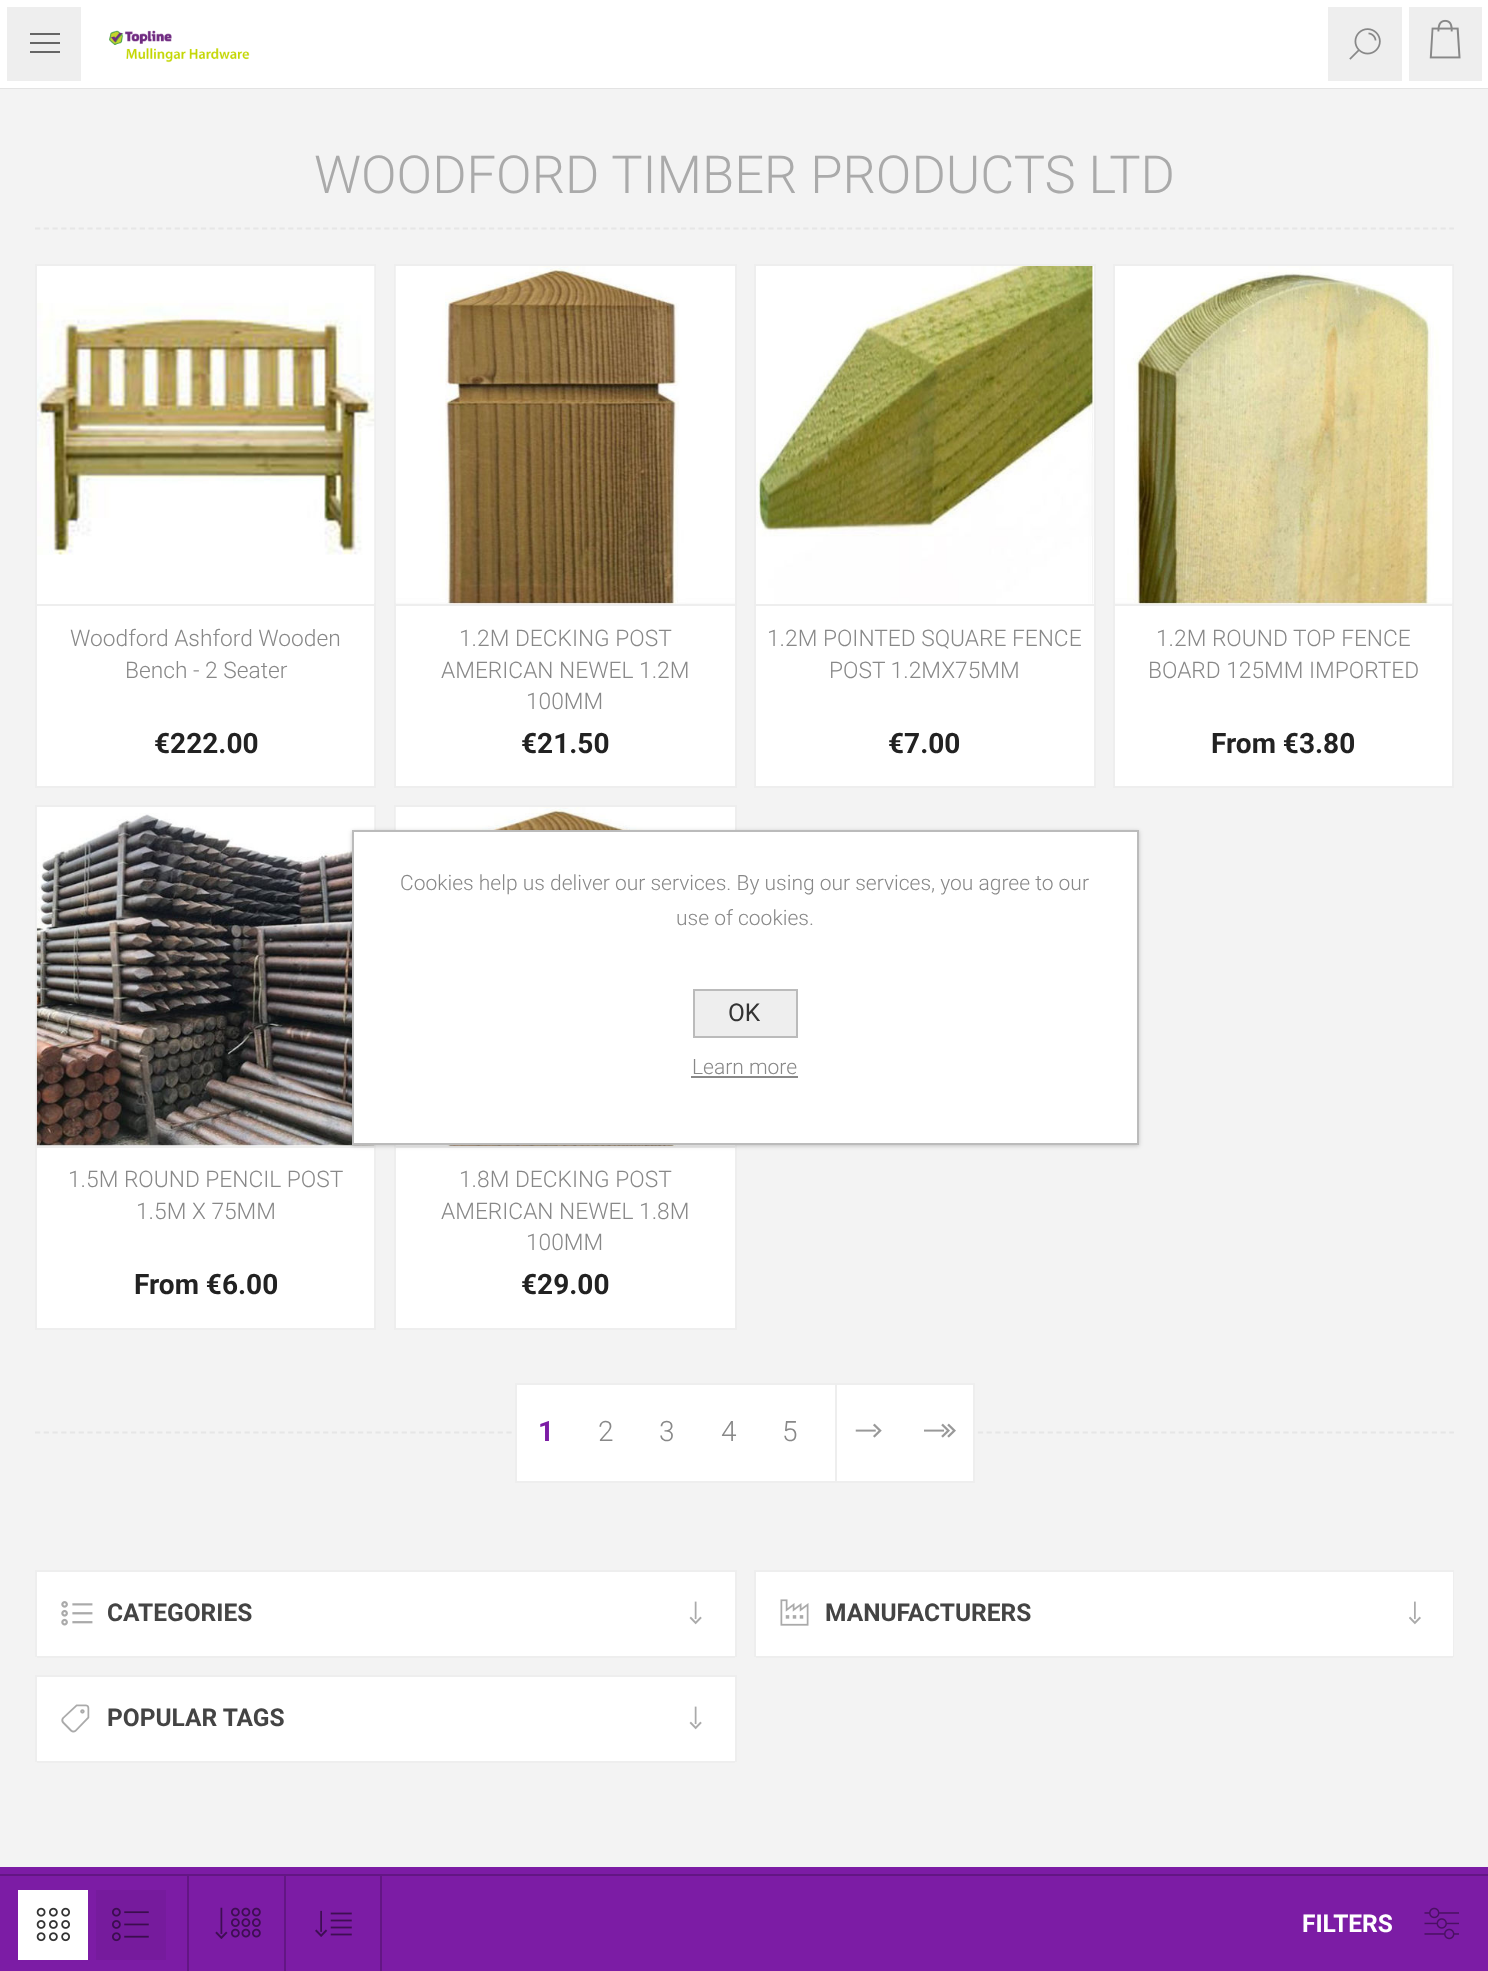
(async () => {
const canvas = document.querySelector("canvas")
canvas.width = 1488
canvas.height = 1971
const c = canvas.getContext("2d")
c.miterLimit = 4
c.fontKerning = "normal"
function T(s,x,y){c.fillText(s,x,y)}
function R(x,y,w,h){c.fillRect(x,y,w,h)}
async function I(src,x,y,w,h){const img=new Image();img.src=src;await img.decode();c.drawImage(img,x,y,w,h)}
let path
c.fillStyle="#f3f3f3"
R(0,0,1488,1971)
c.fillStyle="#e3e3e3"
R(0,88,1488,1)
c.fillStyle="#fff"
R(88,0,1314,88)
await I("1.png",109,30,141,33)
c.fillStyle="#eee"
R(1328,7,74,74)
await I("2.png",1349,28,32,32)
c.beginPath()
c.rect(3.5,3.5,81,81)
c.fill()
c.strokeStyle="#fff"
c.lineWidth=7
c.stroke()
c.fillStyle="#666"
R(30,33,30,2)
R(30,42,30,2)
R(30,51,30,2)
c.fillStyle="#eee"
c.beginPath()
c.rect(1405.5,3.5,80,81)
c.fill()
c.stroke()
await I("3.png",1429,19,32,40)
path = new Path2D("M35 228.5h1419")
c.strokeStyle="#e6e6e6"
c.lineWidth=1.8
c.setLineDash([5.25,3.48])
c.stroke(path)
c.font="300 52.5px Roboto"
c.fillStyle="#aaa"
T("WOODFORD TIMBER PRODUCTS LTD",314,193)
c.fillStyle="#fff"
R(37,603,337,183)
c.strokeStyle="#eee"
c.lineWidth=2
c.setLineDash([])
c.strokeRect(36,265,339,522)
c.fillStyle="#eee"
R(37,604,338,2)
await I("4.png",37,266,338,337)
c.font="300 22.75px Roboto"
c.fillStyle="#888"
T("Woodford Ashford Wooden",70,646)
T("Bench - 2 Seater",125,678)
c.font="bold 28px Roboto"
c.fillStyle="#222"
T("€222.00",154,753)
c.fillStyle="#fff"
R(396,603,339,183)
c.strokeRect(395,265,341,522)
c.fillStyle="#eee"
R(396,604,339,2)
await I("5.png",395,266,340,338)
c.font="300 22.75px Roboto"
c.fillStyle="#888"
T("1.2M DECKING POST",459,646)
T("AMERICAN NEWEL 1.2M",441,678)
T("100MM",526,709)
c.font="bold 28px Roboto"
c.fillStyle="#222"
T("€21.50",521,753)
c.fillStyle="#fff"
c.beginPath()
c.rect(755,265,340,522)
c.fill()
c.stroke()
c.fillStyle="#eee"
R(756,604,338,2)
await I("6.png",756,266,338,338)
c.font="300 22.75px Roboto"
c.fillStyle="#888"
T("1.2M POINTED SQUARE FENCE",767,646)
T("POST 1.2MX75MM",829,678)
c.font="bold 28px Roboto"
c.fillStyle="#222"
T("€7.00",888,753)
c.fillStyle="#fff"
R(1115,603,337,183)
c.strokeRect(1114,265,339,522)
c.fillStyle="#eee"
R(1115,604,338,2)
await I("7.png",1115,266,338,338)
c.font="300 22.75px Roboto"
c.fillStyle="#888"
T("1.2M ROUND TOP FENCE",1156,646)
T("BOARD 125MM IMPORTED",1148,678)
c.font="bold 28px Roboto"
c.fillStyle="#222"
T("From €3.80",1211,753)
c.fillStyle="#fff"
R(37,1148,337,180)
c.strokeRect(36,806,339,523)
c.fillStyle="#eee"
R(37,1146,338,2)
await I("8.png",36,807,339,339)
c.font="300 22.75px Roboto"
c.fillStyle="#888"
T("1.5M ROUND PENCIL POST",68,1187)
T("1.5M X 75MM",136,1219)
c.font="bold 28px Roboto"
c.fillStyle="#222"
T("From €6.00",134,1294)
c.fillStyle="#fff"
R(396,1148,339,180)
c.strokeRect(395,806,341,523)
c.fillStyle="#eee"
R(396,1146,339,2)
await I("9.png",395,807,340,339)
c.font="300 22.75px Roboto"
c.fillStyle="#888"
T("1.8M DECKING POST",459,1187)
T("AMERICAN NEWEL 1.8M",441,1219)
T("100MM",526,1250)
c.font="bold 28px Roboto"
c.fillStyle="#222"
T("€29.00",521,1294)
path = new Path2D("M35 1432.5h1419")
c.strokeStyle="#e6e6e6"
c.lineWidth=1.8
c.setLineDash([5.25,3.48])
c.stroke(path)
c.fillStyle="#fff"
R(517,1385,456,96)
c.fillStyle="#eee"
R(515,1383,460,2)
R(515,1481,386,2)
R(515,1383,2,99)
c.fillStyle="#7c1ca5"
T("1",538,1441)
c.font="300 28px Roboto"
c.fillStyle="#888"
T("2",598,1441)
T("3",659,1441)
T("4",721,1441)
T("5",782,1441)
c.fillStyle="#eee"
R(835,1384,2,97)
await I("10.png",855,1423,27,15)
R(973,1383,2,99)
R(901,1481,74,2)
await I("11.png",924,1423,32,15)
c.fillStyle="#fff"
R(37,1572,698,84)
c.fillStyle="#eee"
R(35,1570,702,2)
R(735,1570,2,87)
R(35,1570,2,87)
R(37,1656,698,2)
await I("12.png",61,1601,32,25)
c.font="bold 24.5px Roboto"
c.fillStyle="#444"
T("CATEGORIES",107,1621)
await I("13.png",689,1601,13,24)
c.fillStyle="#fff"
R(756,1572,697,84)
c.fillStyle="#eee"
R(754,1570,700,2)
R(1453,1570,1,87)
R(754,1570,2,87)
R(756,1656,697,2)
await I("14.png",780,1599,29,27)
c.fillStyle="#444"
T("MANUFACTURERS",825,1621)
await I("15.png",1409,1601,12,24)
c.fillStyle="#fff"
R(37,1677,698,84)
c.fillStyle="#eee"
R(35,1675,702,2)
R(735,1675,2,87)
R(35,1675,2,87)
R(37,1761,698,2)
await I("16.png",61,1704,29,29)
c.fillStyle="#444"
T("POPULAR TAGS",107,1726)
await I("13.png",689,1706,13,24)
c.fillStyle="#7c1ca5"
R(0,1867,1488,7)
R(0,1876,1488,95)
c.fillStyle="#631684"
R(0,1874,1488,2)
R(187,1876,2,95)
c.fillStyle="#fff"
R(18,1890,70,70)
await I("17.png",36,1907,34,35)
c.fillStyle="#761b9d"
R(96,1890,70,70)
await I("18.png",112,1907,37,35)
await I("19.png",215,1907,46,32)
c.fillStyle="#631684"
R(284,1876,2,95)
await I("20.png",315,1910,37,27)
R(380,1876,2,95)
c.fillStyle="#fff"
T("FILTERS",1302,1932)
await I("21.png",1424,1907,35,33)
c.fillStyle="#00000033"
c.filter="blur(2px)"
c.beginPath()
c.rect(352,831,787,315)
c.fill()
c.filter="none"
c.fillStyle="#fff"
c.beginPath()
c.rect(353,831,785,313)
c.fill()
c.strokeStyle="#bbb"
c.lineWidth=2
c.setLineDash([])
c.stroke()
c.font="300 21px Roboto"
c.fillStyle="#888"
T("Cookies help us deliver our services. By using our services, you agree to our",400,890)
T("use of cookies.",676,925)
c.fillStyle="#eee"
c.beginPath()
c.rect(694,990,103,47)
c.fill()
c.stroke()
c.font="24.5px Roboto"
c.fillStyle="#333"
T("OK",728,1021)
c.font="300 21px Roboto"
c.fillStyle="#888"
T("Learn more",692,1074)
R(691,1076,107,2)
})()
